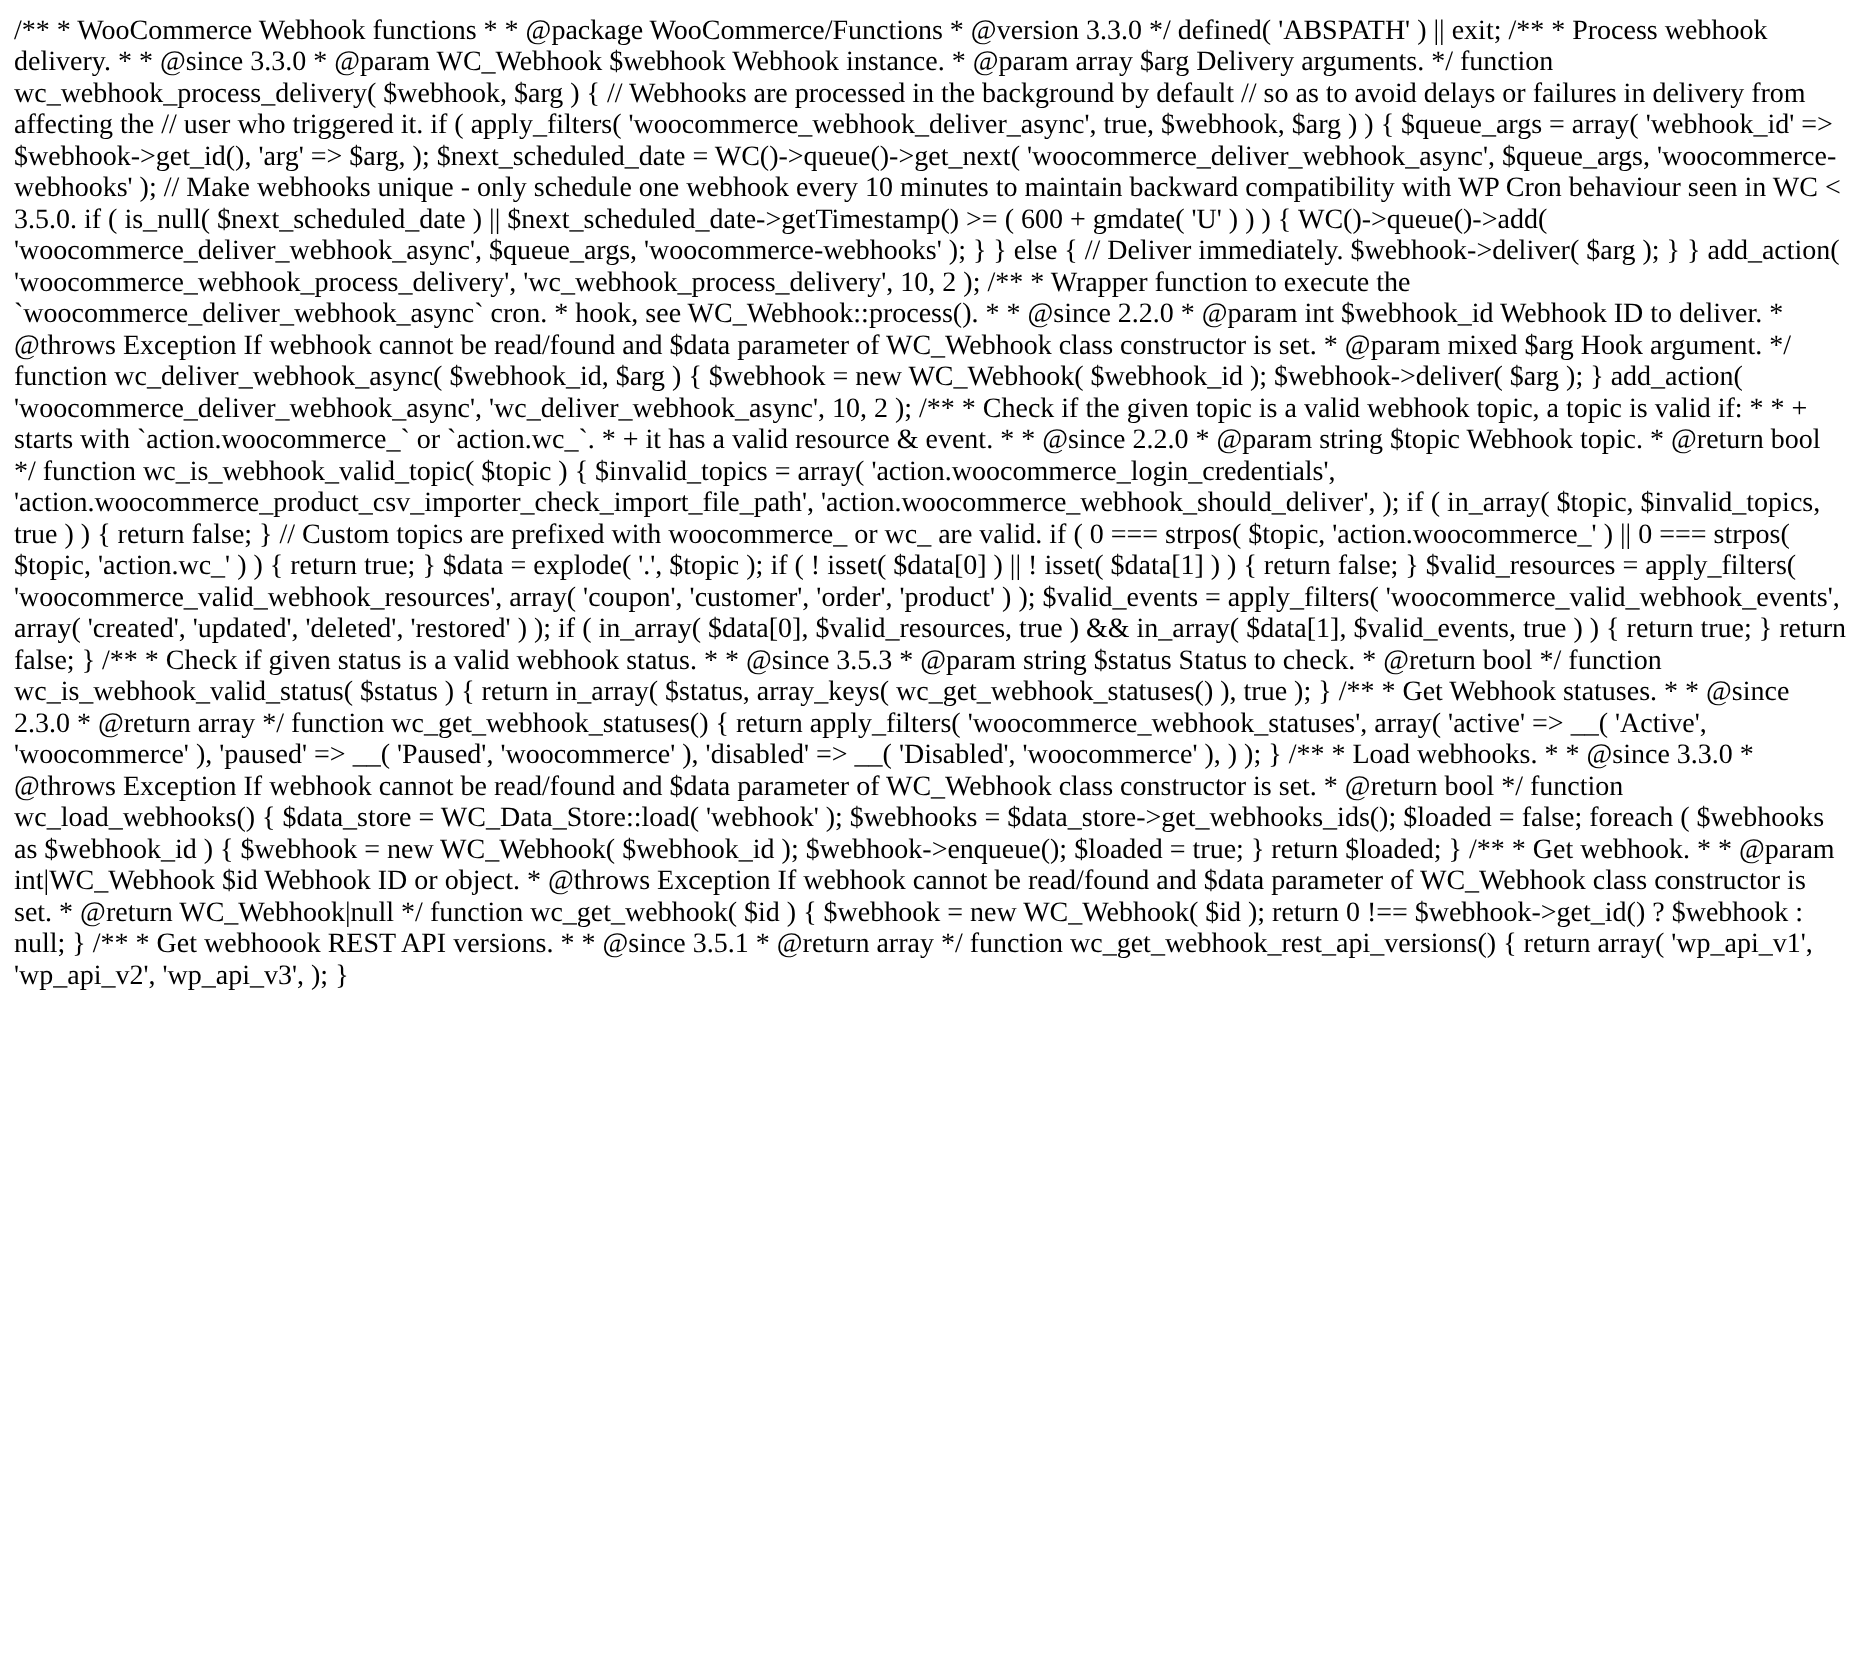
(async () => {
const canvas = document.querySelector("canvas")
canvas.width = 1862
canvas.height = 1659
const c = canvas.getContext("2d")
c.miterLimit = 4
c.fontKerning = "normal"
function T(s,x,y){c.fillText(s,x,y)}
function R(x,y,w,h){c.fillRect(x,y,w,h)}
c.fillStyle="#fff"
R(0,0,1862,1659)
c.font="28px Liberation Serif"
c.fillStyle="#000"
T("/** * WooCommerce Webhook functions * * @package WooCommerce/Functions * @version 3.3.0 */ defined( 'ABSPATH' ) || exit; /** * Process webhook",14,39)
T("delivery. * * @since 3.3.0 * @param WC_Webhook $webhook Webhook instance. * @param array $arg Delivery arguments. */ function",14,70)
T("wc_webhook_process_delivery( $webhook, $arg ) { // Webhooks are processed in the background by default // so as to avoid delays or failures in delivery from",14,102)
T("affecting the // user who triggered it. if ( apply_filters( 'woocommerce_webhook_deliver_async', true, $webhook, $arg ) ) { $queue_args = array( 'webhook_id' =>",14,133)
T("$webhook->get_id(), 'arg' => $arg, ); $next_scheduled_date = WC()->queue()->get_next( 'woocommerce_deliver_webhook_async', $queue_args, 'woocommerce-",14,165)
T("webhooks' ); // Make webhooks unique - only schedule one webhook every 10 minutes to maintain backward compatibility with WP Cron behaviour seen in WC <",14,196)
T("3.5.0. if ( is_null( $next_scheduled_date ) || $next_scheduled_date->getTimestamp() >= ( 600 + gmdate( 'U' ) ) ) {",14,228)
T("WC()->queue()->add(",1298,228)
T("'woocommerce_deliver_webhook_async', $queue_args, 'woocommerce-webhooks' ); } } else { // Deliver immediately. $webhook->deliver( $arg ); } } add_action(",14,259)
T("'woocommerce_webhook_process_delivery', 'wc_webhook_process_delivery', 10, 2 ); /** * Wrapper function to execute the",14,291)
T("`woocommerce_deliver_webhook_async` cron. * hook, see WC_Webhook::process(). * * @since 2.2.0 * @param int $webhook_id Webhook ID to deliver. *",14,322)
T("@throws Exception If webhook cannot be read/found and $data parameter of WC_Webhook class constructor is set. * @param mixed $arg Hook argument. */",14,354)
T("function wc_deliver_webhook_async( $webhook_id, $arg ) { $webhook = new WC_Webhook( $webhook_id ); $webhook->deliver( $arg ); } add_action(",14,385)
T("'woocommerce_deliver_webhook_async', 'wc_deliver_webhook_async', 10, 2 ); /** * Check if the given topic is a valid webhook topic, a topic is valid if: * * +",14,417)
T("starts with `action.woocommerce_` or `action.wc_`. * + it has a valid resource & event. * * @since 2.2.0 * @param string $topic Webhook topic. * @return bool",14,448)
T("*/ function wc_is_webhook_valid_topic( $topic ) { $invalid_topics = array( 'action.woocommerce_login_credentials',",14,480)
T("'action.woocommerce_product_csv_importer_check_import_file_path', 'action.woocommerce_webhook_should_deliver', ); if ( in_array( $topic, $invalid_topics,",14,511)
T("true ) ) { return false; } // Custom topics are prefixed with woocommerce_ or wc_ are valid. if ( 0 === strpos( $topic, 'action.woocommerce_' ) || 0 === strpos(",14,543)
T("$topic, 'action.wc_' ) ) { return true; } $data = explode( '.', $topic ); if ( ! isset( $data[0] ) || ! isset( $data[1] ) ) { return false; } $valid_resources = apply_filters(",14,574)
T("'woocommerce_valid_webhook_resources', array( 'coupon', 'customer', 'order', 'product' ) ); $valid_events = apply_filters( 'woocommerce_valid_webhook_events',",14,606)
T("array( 'created', 'updated', 'deleted', 'restored' ) ); if ( in_array( $data[0], $valid_resources, true ) && in_array( $data[1], $valid_events, true ) ) { return true; } return",14,637)
T("false; } /** * Check if given status is a valid webhook status. * * @since 3.5.3 * @param string $status Status to check. * @return bool */ function",14,669)
T("wc_is_webhook_valid_status( $status ) { return in_array( $status, array_keys( wc_get_webhook_statuses() ), true ); } /** * Get Webhook statuses. * * @since",14,700)
T("2.3.0 * @return array */ function wc_get_webhook_statuses() { return apply_filters( 'woocommerce_webhook_statuses', array( 'active' => __( 'Active',",14,732)
T("'woocommerce' ), 'paused' => __( 'Paused', 'woocommerce' ), 'disabled' => __( 'Disabled', 'woocommerce' ), ) ); } /** * Load webhooks. * * @since 3.3.0 *",14,763)
T("@throws Exception If webhook cannot be read/found and $data parameter of WC_Webhook class constructor is set. * @return bool */ function",14,795)
T("wc_load_webhooks() { $data_store = WC_Data_Store::load( 'webhook' ); $webhooks = $data_store->get_webhooks_ids(); $loaded = false; foreach ( $webhooks",14,826)
T("as $webhook_id ) { $webhook = new WC_Webhook( $webhook_id ); $webhook->enqueue(); $loaded = true; } return $loaded; } /** * Get webhook. * * @param",14,858)
T("int|WC_Webhook $id Webhook ID or object. * @throws Exception If webhook cannot be read/found and $data parameter of WC_Webhook class constructor is",14,889)
T("set. * @return WC_Webhook|null */ function wc_get_webhook( $id ) { $webhook = new WC_Webhook( $id ); return 0 !== $webhook->get_id() ? $webhook :",14,921)
T("null; } /** * Get webhoook REST API versions. * * @since 3.5.1 * @return array */ function wc_get_webhook_rest_api_versions() { return array( 'wp_api_v1',",14,952)
T("'wp_api_v2', 'wp_api_v3', ); }",14,984)
})()
